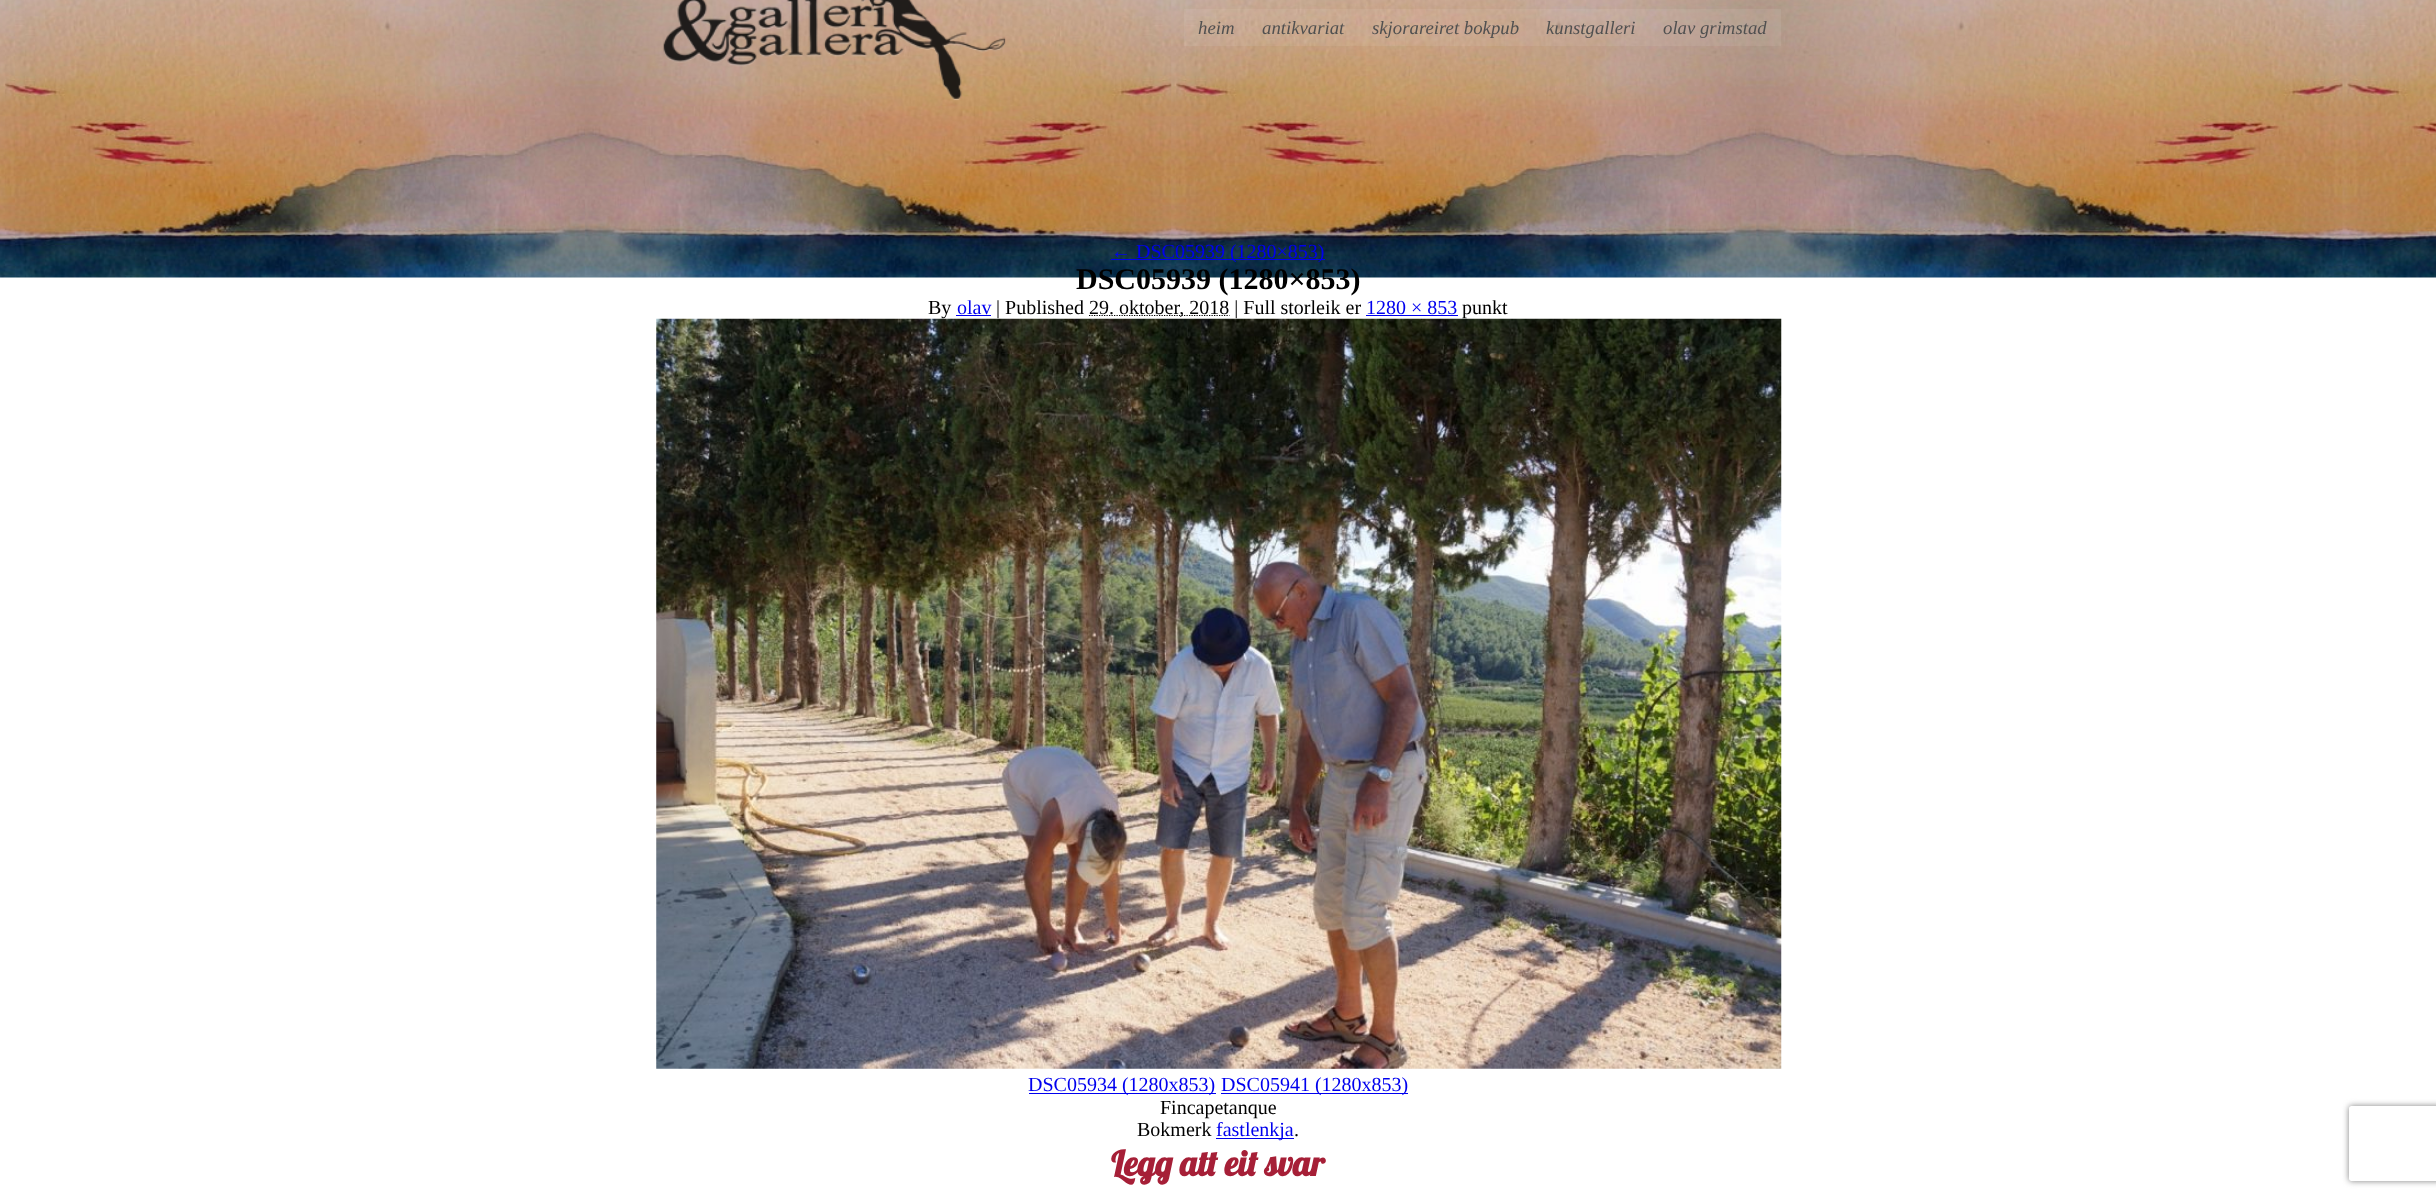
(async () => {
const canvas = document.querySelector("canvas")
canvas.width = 2436
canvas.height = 1198
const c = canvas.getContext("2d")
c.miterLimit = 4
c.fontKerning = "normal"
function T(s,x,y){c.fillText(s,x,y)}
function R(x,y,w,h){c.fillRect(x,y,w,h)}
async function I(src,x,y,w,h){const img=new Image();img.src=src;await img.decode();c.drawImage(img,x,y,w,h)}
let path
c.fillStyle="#fff"
R(0,0,2436,1198)
await I("1.png",0,0,2436,278)
await I("2.png",663,0,343,101)
c.fillStyle="#ffffff12"
R(1184,9,597,37)
c.font="italic 18.75px Liberation Serif"
c.fillStyle="#505050"
T("heim",1198,34)
T("antikvariat",1262,34)
T("skjorareiret bokpub",1372,34)
T("kunstgalleri",1546,34)
T("olav grimstad",1663,34)
c.fillStyle="#00e"
R(1111,259,214,1)
c.font="20px Liberation Serif"
T("← DSC05939 (1280×853)",1111,258)
c.font="bold 30px Liberation Serif"
c.fillStyle="#000"
T("DSC05939 (1280×853)",1076,289)
c.font="20px Liberation Serif"
T("By",928,314)
c.fillStyle="#00e"
T("olav",957,314)
R(956,315,35,1)
c.fillStyle="#000"
T("| Published",996,314)
path = new Path2D("M1089 315.5h140.5")
c.strokeStyle="#000"
c.lineWidth=1.2
c.setLineDash([1.25,1.25])
c.stroke(path)
T("29. oktober, 2018 | Full storleik er",1089,314)
c.fillStyle="#00e"
T("1280 × 853",1366,314)
R(1366,315,92,1)
c.fillStyle="#000"
T("punkt",1462,314)
await I("3.png",656,318,1126,751)
c.fillStyle="#00e"
R(1029,1093,187,1)
T("DSC05934 (1280x853)",1028,1091)
R(1221,1093,187,1)
T("DSC05941 (1280x853)",1221,1091)
c.fillStyle="#000"
T("Fincapetanque",1160,1114)
c.save()
path = new Path2D("M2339 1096h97v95h-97zm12.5 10h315c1.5 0 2.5 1 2.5 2.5v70c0 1.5-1 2.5-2.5 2.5h-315c-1.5 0-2.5-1-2.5-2.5v-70c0-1.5 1-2.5 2.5-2.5z")
c.clip(path,"evenodd")
c.fillStyle="#808080"
c.filter="blur(3px)"
c.beginPath()
c.roundRect(2349,1106,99,75,2.5)
c.fill()
c.filter="none"
c.restore()
T("Bokmerk",1137,1136)
c.fillStyle="#00e"
R(1216,1138,78,1)
T("fastlenkja",1216,1136)
c.fillStyle="#000"
T(".",1294,1136)
c.font="bold 35px Lobster"
c.fillStyle="#a61f37"
T("Legg att eit svar",1111,1176)
})()
